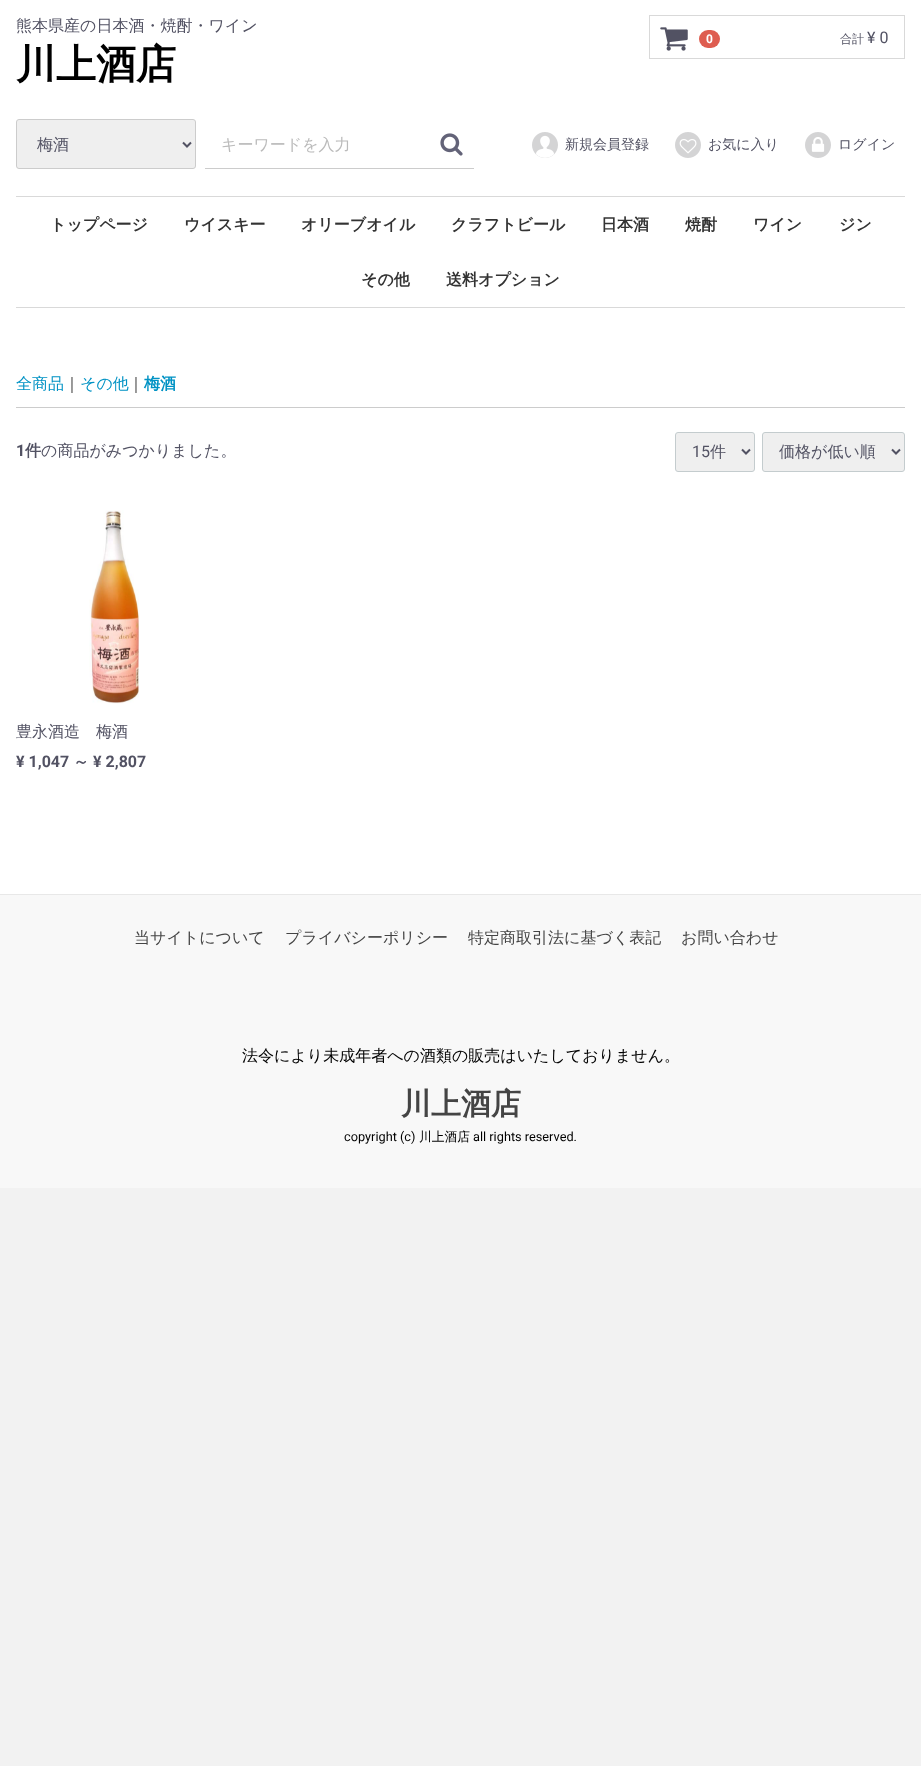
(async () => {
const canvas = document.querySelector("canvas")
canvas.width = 921
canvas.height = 1766
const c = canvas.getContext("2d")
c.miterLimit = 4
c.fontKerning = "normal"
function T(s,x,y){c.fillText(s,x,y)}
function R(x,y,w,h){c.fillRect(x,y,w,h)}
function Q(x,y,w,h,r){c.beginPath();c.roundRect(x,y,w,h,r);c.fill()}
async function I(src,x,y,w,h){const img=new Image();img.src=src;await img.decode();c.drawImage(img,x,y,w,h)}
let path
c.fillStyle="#f2f2f2"
R(0,0,921,1766)
c.fillStyle="#fff"
R(0,0,921,894)
c.font="500 16px WenQuanYi Zen Hei"
c.fillStyle="#525263"
T("熊本県産の日本酒・焼酎・ワイン",16,31)
c.font="bold 40px WenQuanYi Zen Hei"
c.fillStyle="#000"
T("川上酒店",16,78)
c.strokeStyle="#d9d9d9"
c.strokeRect(649.5,15.5,255,43)
await I("1.png",660,27,28,24)
c.fillStyle="#de5d50"
Q(699,30,21,18,9)
c.font="bold 12px Roboto"
c.fillStyle="#fff"
T("0",706,43)
c.font="500 12px WenQuanYi Zen Hei"
c.fillStyle="#525263"
T("合計",840,43)
c.font="16px Roboto"
T("¥ 0",867,43)
c.fillStyle="#efefef"
c.beginPath()
c.roundRect(16.5,119.5,179,49,2.5)
c.fill()
c.strokeStyle="#ccc"
c.stroke()
path = new Path2D("M183 142.5l4 4l4-4")
c.strokeStyle="#525263"
c.lineWidth=2
c.stroke(path)
c.font="500 16px WenQuanYi Zen Hei"
c.fillStyle="#525263"
T("梅酒",37,150)
c.fillStyle="#ccc"
R(205,168,269,1)
c.fillStyle="#bbb"
T("キーワードを入力",221,150)
await I("2.png",440,133,23,23)
await I("3.png",532,132,26,26)
c.font="500 14px WenQuanYi Zen Hei"
c.fillStyle="#525263"
T("新規会員登録",565,149)
await I("4.png",675,132,26,26)
T("お気に入り",708,149)
await I("5.png",805,132,26,26)
T("ログイン",838,149)
c.fillStyle="#d9d9d9"
R(16,196,889,1)
R(16,307,889,1)
c.font="bold 16px WenQuanYi Zen Hei"
c.fillStyle="#333"
T("トップページ",50,230)
T("ウイスキー",184,230)
T("オリーブオイル",301,230)
T("クラフトビール",451,230)
T("日本酒",601,230)
T("焼酎",685,230)
T("ワイン",753,230)
T("ジン",839,230)
T("その他",361,285)
T("送料オプション",446,285)
c.fillStyle="#ccc"
R(16,407,889,1)
c.font="500 16px WenQuanYi Zen Hei"
c.fillStyle="#0092c4"
T("全商品",16,389)
c.fillStyle="#333"
T("｜",64,389)
c.fillStyle="#0092c4"
T("その他",80,389)
c.fillStyle="#333"
T("｜",128,389)
c.font="bold 16px WenQuanYi Zen Hei"
c.fillStyle="#0092c4"
T("梅酒",144,389)
c.font="bold 16px Roboto"
c.fillStyle="#525263"
T("1",16,456)
c.font="bold 16px WenQuanYi Zen Hei"
T("件",25,456)
c.font="500 16px WenQuanYi Zen Hei"
T("の商品がみつかりました。",41,456)
c.fillStyle="#efefef"
c.beginPath()
c.roundRect(675.5,432.5,79,39,2.5)
c.fill()
c.strokeStyle="#c4ccce"
c.lineWidth=1
c.stroke()
path = new Path2D("M742 449.5l4 4l4-4")
c.strokeStyle="#525263"
c.lineWidth=2
c.stroke(path)
c.font="16px Roboto"
c.fillStyle="#525263"
T("15",692,457)
c.font="500 16px WenQuanYi Zen Hei"
T("件",710,457)
c.fillStyle="#efefef"
c.beginPath()
c.roundRect(762.5,432.5,142,39,2.5)
c.fill()
c.strokeStyle="#c4ccce"
c.lineWidth=1
c.stroke()
path = new Path2D("M892 449.5l4 4l4-4")
c.strokeStyle="#525263"
c.lineWidth=2
c.stroke(path)
c.fillStyle="#525263"
T("価格が低い順",779,457)
await I("6.png",89,510,50,194)
T("豊永酒造　梅酒",16,737)
c.font="bold 16px Roboto"
T("¥ 1,047",16,767)
c.font="bold 16px WenQuanYi Zen Hei"
T("～",73,767)
c.font="bold 16px Roboto"
T("¥ 2,807",93,767)
c.fillStyle="#f8f8f8"
R(0,895,921,293)
c.fillStyle="#e8e8e8"
R(0,894,921,1)
c.font="500 16px WenQuanYi Zen Hei"
c.fillStyle="#444"
T("当サイトについて",134,943)
T("プライバシーポリシー",285,943)
T("特定商取引法に基づく表記",468,943)
T("お問い合わせ",681,943)
c.fillStyle="#000"
T("法令により未成年者への酒類の販売はいたしておりません。",242,1061)
c.font="bold 30px WenQuanYi Zen Hei"
c.fillStyle="#444"
T("川上酒店",401,1114)
c.font="12.75px Roboto"
c.fillStyle="#000"
T("copyright (c)",344,1141)
c.font="500 12.75px WenQuanYi Zen Hei"
T("川上酒店",419,1141)
c.font="12.75px Roboto"
T("all rights reserved.",473,1141)
})()
